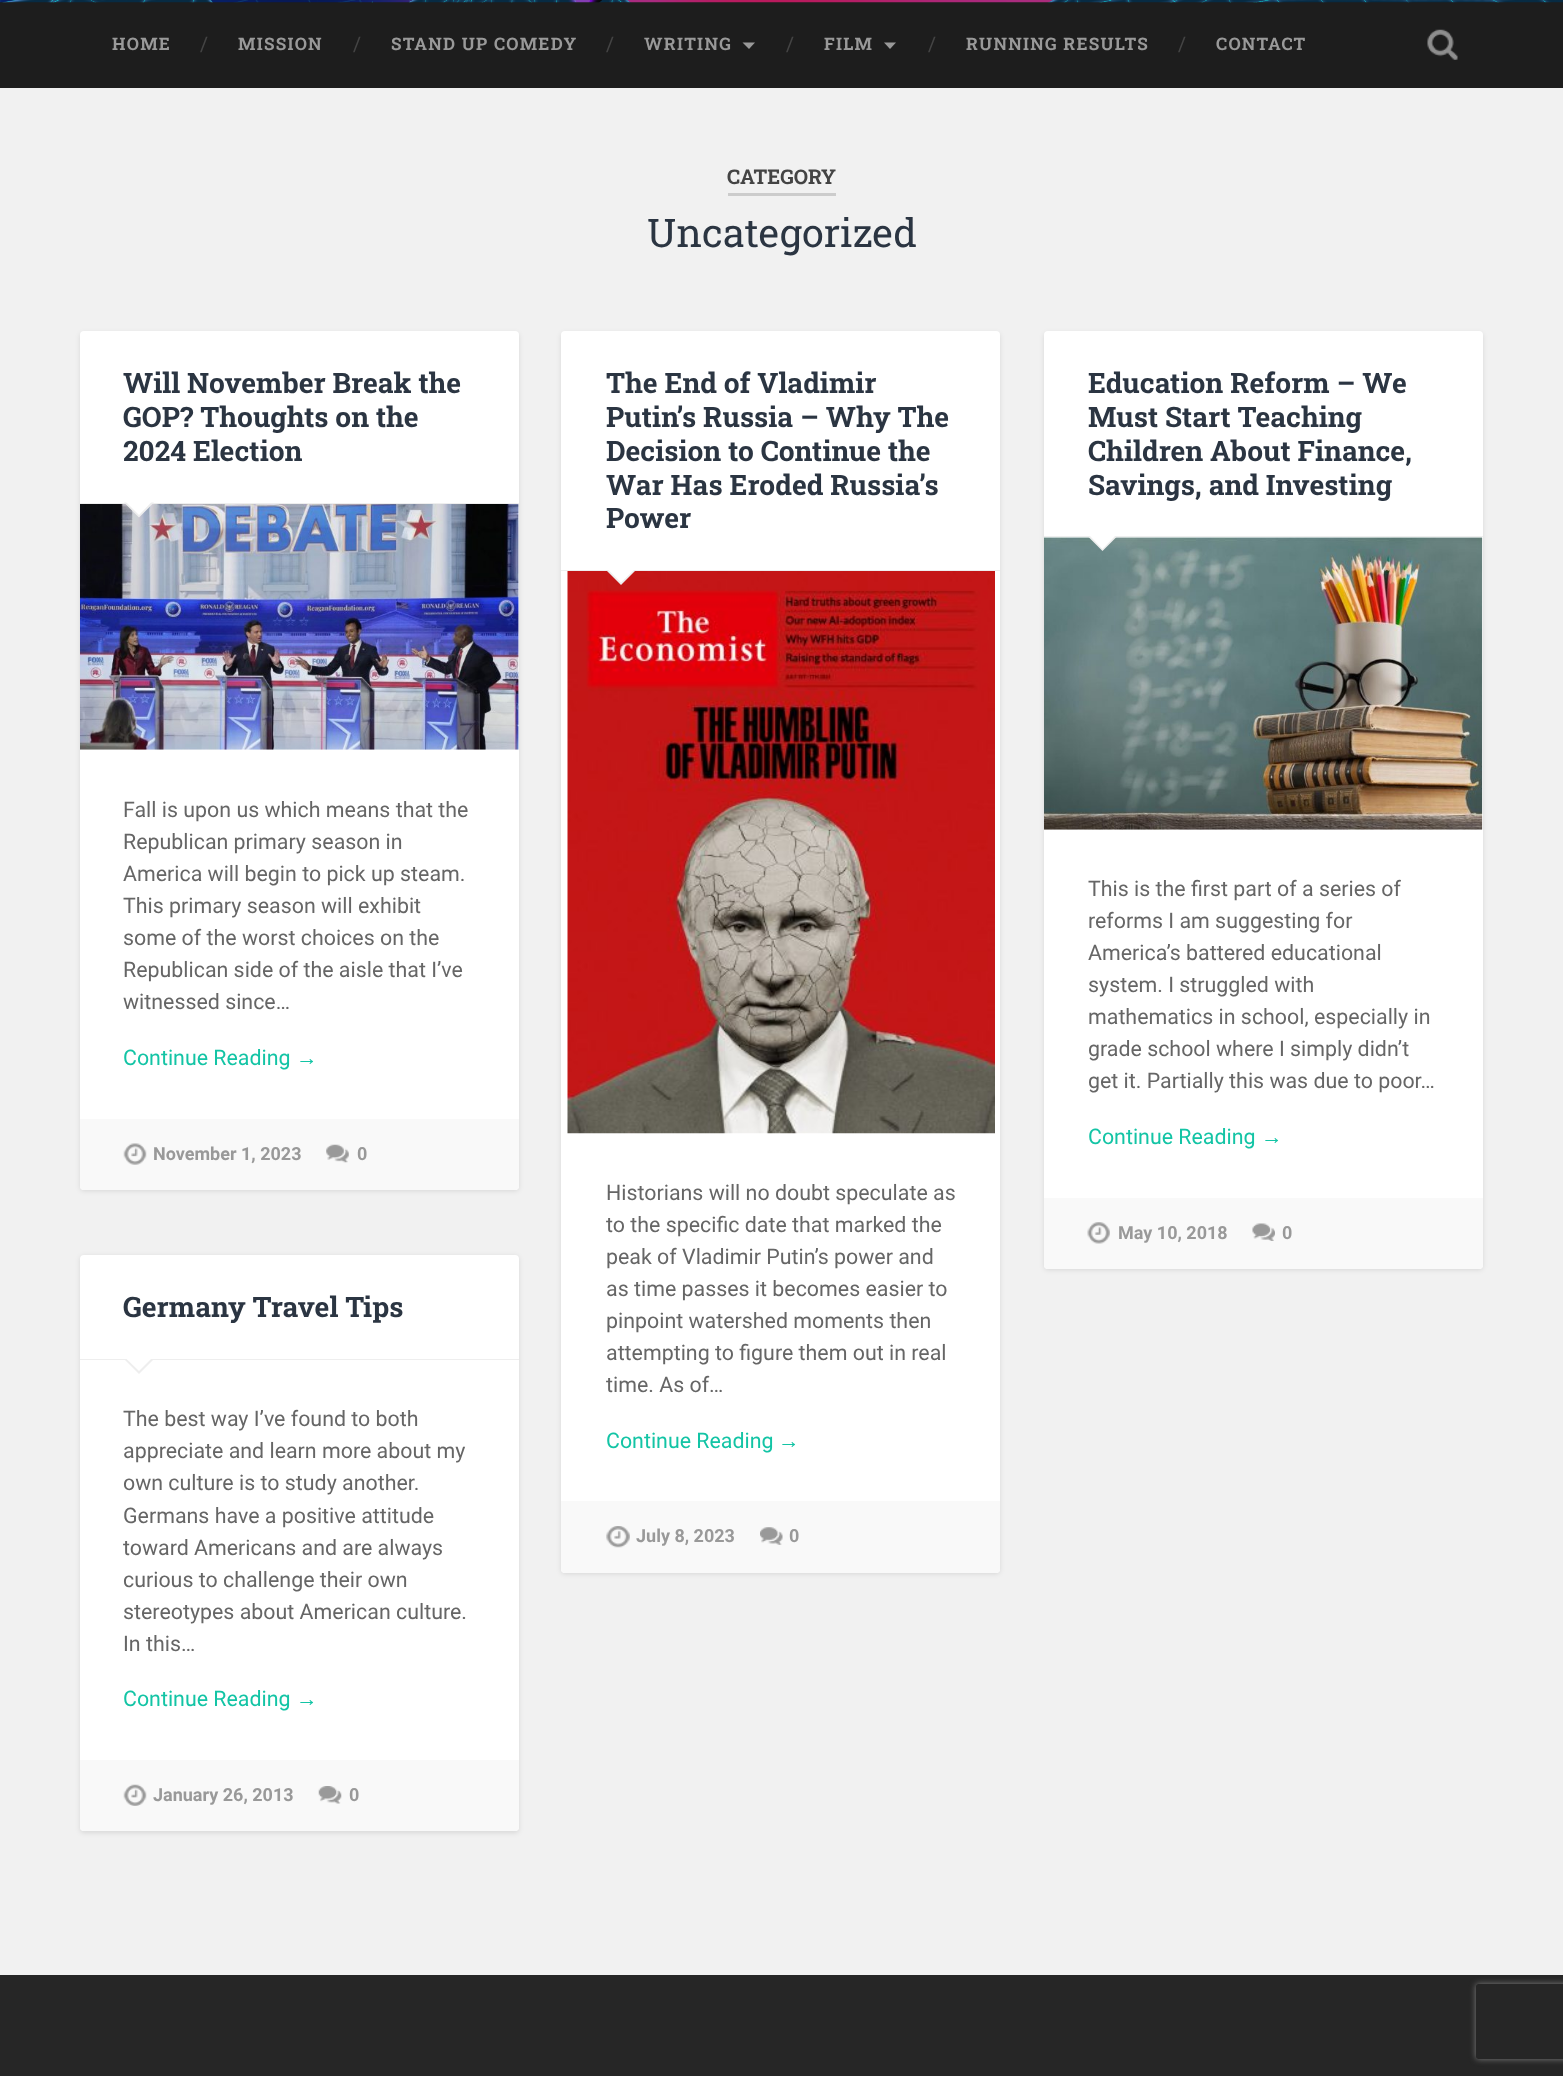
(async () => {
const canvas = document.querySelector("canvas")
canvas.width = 1563
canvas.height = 2076
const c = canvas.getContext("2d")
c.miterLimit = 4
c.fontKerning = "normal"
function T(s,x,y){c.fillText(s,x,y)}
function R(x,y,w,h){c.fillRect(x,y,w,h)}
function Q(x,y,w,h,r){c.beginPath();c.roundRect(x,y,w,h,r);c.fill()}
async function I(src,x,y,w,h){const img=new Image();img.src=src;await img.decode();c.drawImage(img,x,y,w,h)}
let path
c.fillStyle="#f1f1f1"
R(0,0,1563,2076)
c.fillStyle="#1d1d1d"
R(0,2,1563,86)
await I("1.png",0,0,1563,3)
c.letterSpacing="1.25px"
c.font="bold 17.25px Roboto Slab"
c.fillStyle="#999"
T("HOME",112,50)
c.letterSpacing="0px"
c.font="20px Roboto Slab"
c.fillStyle="#444"
T("/",200,51)
c.letterSpacing="1.25px"
c.font="bold 17.25px Roboto Slab"
c.fillStyle="#999"
T("MISSION",238,50)
c.letterSpacing="0px"
c.font="20px Roboto Slab"
c.fillStyle="#444"
T("/",353,51)
c.letterSpacing="1.25px"
c.font="bold 17.25px Roboto Slab"
c.fillStyle="#999"
T("STAND UP COMEDY",391,50)
c.letterSpacing="0px"
c.font="20px Roboto Slab"
c.fillStyle="#444"
T("/",606,51)
c.letterSpacing="1.25px"
c.font="bold 17.25px Roboto Slab"
c.fillStyle="#999"
T("WRITING",644,50)
path = new Path2D("M742.5 42.5h12.5l-6 6.5z")
c.fill(path)
c.letterSpacing="0px"
c.font="20px Roboto Slab"
c.fillStyle="#444"
T("/",786,51)
c.letterSpacing="1.25px"
c.font="bold 17.25px Roboto Slab"
c.fillStyle="#999"
T("FILM",824,50)
path = new Path2D("M884 42.5h12l-6 6.5z")
c.fill(path)
c.letterSpacing="0px"
c.font="20px Roboto Slab"
c.fillStyle="#444"
T("/",928,51)
c.letterSpacing="1.25px"
c.font="bold 17.25px Roboto Slab"
c.fillStyle="#999"
T("RUNNING RESULTS",966,50)
c.letterSpacing="0px"
c.font="20px Roboto Slab"
c.fillStyle="#444"
T("/",1178,51)
c.letterSpacing="1.25px"
c.font="bold 17.25px Roboto Slab"
c.fillStyle="#999"
T("CONTACT",1216,50)
await I("2.png",1427,29,31,31)
c.fillStyle="#ccc"
R(728,193,108,3)
c.letterSpacing="0px"
c.font="bold 20.25px Roboto Slab"
c.fillStyle="#444"
T("CATEGORY",727,184)
c.font="39.5px Roboto Slab"
c.fillStyle="#2b3542"
T("Uncategorized",647,247)
c.fillStyle="#0000001a"
c.filter="blur(2.5px)"
c.beginPath()
c.roundRect(80,333,439,858,4)
c.fill()
c.filter="none"
c.fillStyle="#fff"
Q(80,331,439,859,4)
c.fillStyle="#eee"
R(80,503,439,1)
c.font="bold 28.1px Roboto Slab"
c.fillStyle="#2b3542"
T("Will November Break the",123,393)
T("GOP? Thoughts on the",123,427)
T("2024 Election",123,461)
await I("3.png",80,504,439,246)
c.fillStyle="#eee"
path = new Path2D("M124 502.5h30l-15 15z")
c.fill(path)
c.fillStyle="#fff"
path = new Path2D("M125 501h27.5l-13.5 14z")
c.fill(path)
c.font="21.4px Roboto"
c.fillStyle="#666"
T("Fall is upon us which means that the",123,817)
T("Republican primary season in",123,849)
T("America will begin to pick up steam.",123,881)
T("This primary season will exhibit",123,913)
T("some of the worst choices on the",123,945)
T("Republican side of the aisle that I’ve",123,977)
T("witnessed since…",123,1009)
c.fillStyle="#13c4a5"
T("Continue Reading",123,1065)
c.font="21.4px Liberation Sans"
T("→",296,1065)
c.fillStyle="#f9f9f9"
c.beginPath()
c.roundRect(80,1119,439,71,[0,0,4,4])
c.fill()
await I("4.png",123,1143,24,22)
c.font="bold 18px Roboto"
c.fillStyle="#999"
T("November 1, 2023",153,1160)
await I("5.png",326,1144,23,19)
T("0",357,1160)
c.fillStyle="#0000001a"
c.filter="blur(2.5px)"
c.beginPath()
c.roundRect(561,333,439,1241,4)
c.fill()
c.filter="none"
c.fillStyle="#fff"
Q(561,331,439,1242,4)
c.fillStyle="#eee"
R(561,570,439,1)
c.font="bold 28.1px Roboto Slab"
c.fillStyle="#2b3542"
T("The End of Vladimir",606,393)
T("Putin’s Russia – Why The",606,427)
T("Decision to Continue the",606,461)
T("War Has Eroded Russia’s",606,495)
T("Power",606,528)
await I("6.png",567,571,428,563)
c.fillStyle="#eee"
path = new Path2D("M606 570h30l-15 15z")
c.fill(path)
c.fillStyle="#fff"
path = new Path2D("M607.5 569h27.5l-14 13.5z")
c.fill(path)
c.font="21.4px Roboto"
c.fillStyle="#666"
T("Historians will no doubt speculate as",606,1200)
T("to the specific date that marked the",606,1232)
T("peak of Vladimir Putin’s power and",606,1264)
T("as time passes it becomes easier to",606,1296)
T("pinpoint watershed moments then",606,1328)
T("attempting to figure them out in real",606,1360)
T("time. As of…",606,1392)
c.fillStyle="#13c4a5"
T("Continue Reading",606,1448)
c.font="21.4px Liberation Sans"
T("→",778,1448)
c.fillStyle="#f9f9f9"
c.beginPath()
c.roundRect(561,1501,439,72,[0,0,4,4])
c.fill()
await I("7.png",606,1526,24,22)
c.font="bold 18px Roboto"
c.fillStyle="#999"
T("July 8, 2023",636,1542)
await I("8.png",760,1527,23,18)
T("0",789,1542)
c.fillStyle="#0000001a"
c.filter="blur(2.5px)"
c.beginPath()
c.roundRect(1044,333,439,937,4)
c.fill()
c.filter="none"
c.fillStyle="#fff"
Q(1044,331,439,938,4)
c.fillStyle="#eee"
R(1044,536,439,1)
c.font="bold 28.1px Roboto Slab"
c.fillStyle="#2b3542"
T("Education Reform – We",1088,393)
T("Must Start Teaching",1088,427)
T("Children About Finance,",1088,461)
T("Savings, and Investing",1088,495)
await I("9.png",1044,537,439,293)
c.fillStyle="#eee"
path = new Path2D("M1087.5 536h30l-15 15z")
c.fill(path)
c.fillStyle="#fff"
path = new Path2D("M1089 535h27l-13.5 14z")
c.fill(path)
c.font="21.4px Roboto"
c.fillStyle="#666"
T("This is the first part of a series of",1088,896)
T("reforms I am suggesting for",1088,928)
T("America’s battered educational",1088,960)
T("system. I struggled with",1088,992)
T("mathematics in school, especially in",1088,1024)
T("grade school where I simply didn’t",1088,1056)
T("get it. Partially this was due to poor…",1088,1088)
c.fillStyle="#13c4a5"
T("Continue Reading",1088,1144)
c.font="21.4px Liberation Sans"
T("→",1261,1144)
c.fillStyle="#f9f9f9"
c.beginPath()
c.roundRect(1044,1198,439,71,[0,0,4,4])
c.fill()
await I("10.png",1087,1222,23,22)
c.font="bold 18px Roboto"
c.fillStyle="#999"
T("May 10, 2018",1118,1239)
await I("11.png",1252,1223,23,18)
T("0",1282,1239)
c.fillStyle="#0000001a"
c.filter="blur(2.5px)"
c.beginPath()
c.roundRect(80,1256,439,577,4)
c.fill()
c.filter="none"
c.fillStyle="#fff"
Q(80,1255,439,576,4)
c.fillStyle="#eee"
R(80,1359,439,1)
c.font="bold 28.1px Roboto Slab"
c.fillStyle="#2b3542"
T("Germany Travel Tips",123,1317)
c.fillStyle="#eee"
path = new Path2D("M124 1359h30l-15 15z")
c.fill(path)
c.fillStyle="#fff"
path = new Path2D("M125 1357.5h27.5l-13.5 13.5z")
c.fill(path)
c.font="21.4px Roboto"
c.fillStyle="#666"
T("The best way I’ve found to both",123,1426)
T("appreciate and learn more about my",123,1458)
T("own culture is to study another.",123,1490)
T("Germans have a positive attitude",123,1523)
T("toward Americans and are always",123,1555)
T("curious to challenge their own",123,1587)
T("stereotypes about American culture.",123,1619)
T("In this…",123,1651)
c.fillStyle="#13c4a5"
T("Continue Reading",123,1706)
c.font="21.4px Liberation Sans"
T("→",296,1706)
c.fillStyle="#f9f9f9"
c.beginPath()
c.roundRect(80,1760,439,71,[0,0,4,4])
c.fill()
await I("12.png",123,1784,24,22)
c.font="bold 18px Roboto"
c.fillStyle="#999"
T("January 26, 2013",153,1801)
await I("13.png",318,1786,24,18)
T("0",349,1801)
c.fillStyle="#262626"
R(0,1975,1563,101)
c.save()
path = new Path2D("M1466 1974h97v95h-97zm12.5 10h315c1.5 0 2.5 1 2.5 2.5v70c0 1.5-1 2.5-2.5 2.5h-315c-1.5 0-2.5-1-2.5-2.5v-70c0-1.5 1-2.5 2.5-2.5z")
c.clip(path,"evenodd")
c.fillStyle="#808080"
c.filter="blur(3px)"
c.beginPath()
c.roundRect(1476,1984,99,75,2.5)
c.fill()
c.filter="none"
c.restore()
})()
